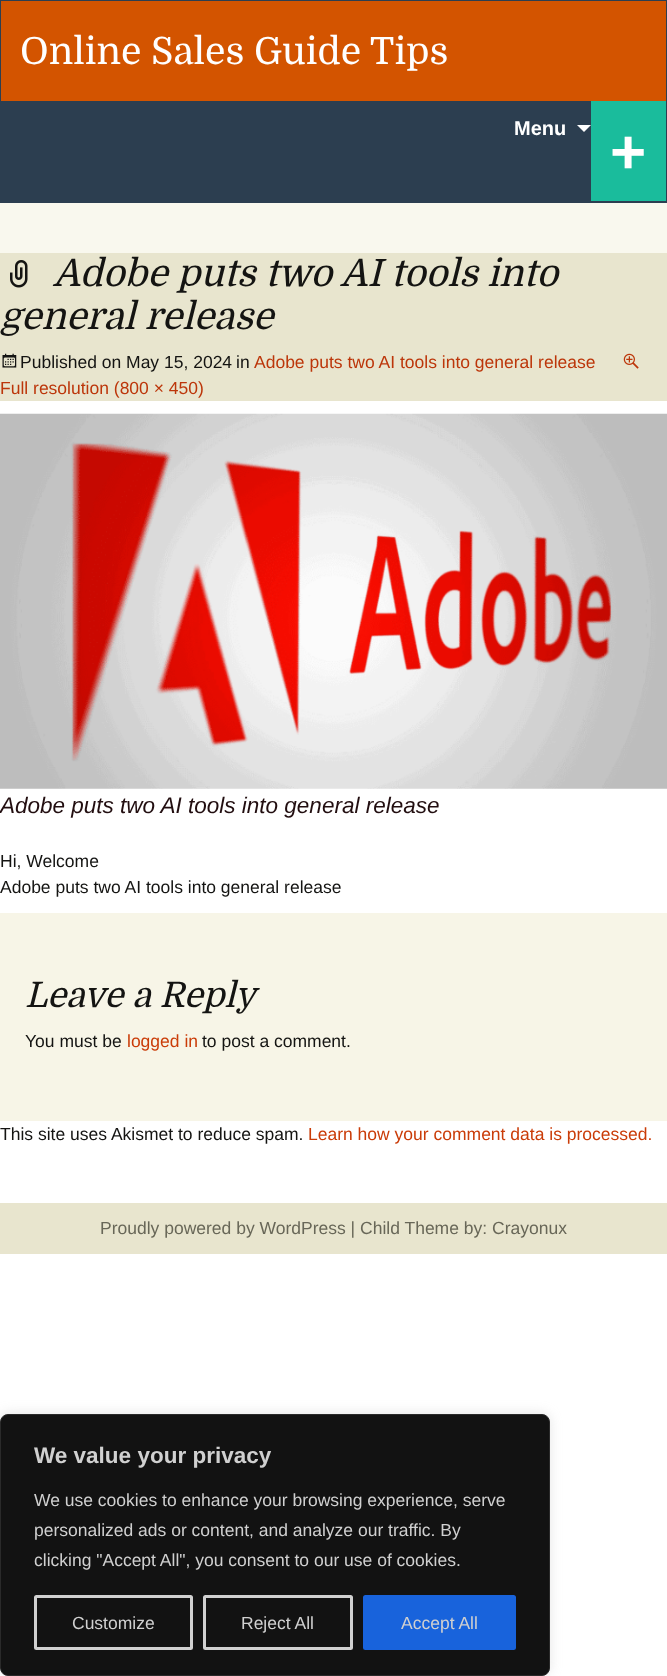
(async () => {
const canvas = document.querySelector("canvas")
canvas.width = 667
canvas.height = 1676
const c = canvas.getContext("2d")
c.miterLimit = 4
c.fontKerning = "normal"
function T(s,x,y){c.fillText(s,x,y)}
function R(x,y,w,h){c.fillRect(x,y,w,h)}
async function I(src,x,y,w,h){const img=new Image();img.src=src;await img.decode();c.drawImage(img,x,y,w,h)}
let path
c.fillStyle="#fff"
R(0,0,667,1676)
c.fillStyle="#2c3e50"
R(0,0,667,203)
c.fillStyle="#d35400"
R(1,1,665,100)
c.font="37.5px Domine"
c.fillStyle="#fff"
T("Online Sales Guide Tips",20,64)
c.font="bold 20px Liberation Sans"
T("Menu",514,135)
path = new Path2D("M577 125h14l-7 7z")
c.fill(path)
c.fillStyle="#1abc9c"
R(591,101,75,100)
c.font="bold 62px Liberation Sans"
c.fillStyle="#fff"
T("+",610,173)
c.fillStyle="#f9f8ee"
R(0,203,667,50)
c.fillStyle="#e8e5ce"
R(0,253,667,148)
await I("1.png",10,260,18,28)
c.font="italic 37.5px Domine"
c.fillStyle="#141412"
T("Adobe puts two AI tools into",53,286)
T("general release",0,329)
await I("2.png",2,353,15,15)
c.font="17.5px Liberation Sans"
T("Published on May 15, 2024",20,368)
T("in",236,368)
c.fillStyle="#bc360a"
T("Adobe puts two AI tools into general release",254,368)
await I("3.png",623,353,16,16)
T("Full resolution (800 × 450)",0,394)
await I("4.png",0,413,667,376)
c.font="italic 22.5px Liberation Sans"
c.fillStyle="#220e10"
T("Adobe puts two AI tools into general release",0,813)
c.font="17.5px Liberation Sans"
c.fillStyle="#141412"
T("Hi, Welcome",0,867)
T("Adobe puts two AI tools into general release",0,893)
c.fillStyle="#f7f5e7"
R(0,913,667,208)
c.font="italic 35px Domine"
c.fillStyle="#141412"
T("Leave a Reply",25,1007)
c.font="17.5px Liberation Sans"
T("You must be",25,1047)
c.fillStyle="#ca3c08"
T("logged in",127,1047)
c.fillStyle="#141412"
T("to post a comment.",202,1047)
T("This site uses Akismet to reduce spam.",0,1140)
c.fillStyle="#ca3c08"
T("Learn how your comment data is processed.",308,1140)
c.fillStyle="#e8e5ce"
R(0,1203,667,51)
c.fillStyle="#686758"
T("Proudly powered by WordPress | Child Theme by: Crayonux",100,1234)
c.fillStyle="#acabab4d"
c.filter="blur(6px)"
c.beginPath()
c.roundRect(0,1413,550,262,8)
c.fill()
c.filter="none"
c.fillStyle="#121212"
c.beginPath()
c.roundRect(.5,1414.5,549,261,7.5)
c.fill()
c.strokeStyle="#2a2a2a"
c.stroke()
c.font="bold 22.5px Liberation Sans"
c.fillStyle="#d0d0d0"
T("We value your privacy",34,1463)
c.font="17.5px Liberation Sans"
T("We use cookies to enhance your browsing experience, serve",34,1506)
T("personalized ads or content, and analyze our traffic. By",34,1536)
T("clicking \"Accept All\", you consent to our use of cookies.",34,1566)
c.beginPath()
c.roundRect(35.5,1596.5,156,52,1)
c.strokeStyle="#d0d0d0"
c.lineWidth=3
c.stroke()
T("Customize",72,1629)
c.beginPath()
c.roundRect(204.5,1596.5,147,52,1)
c.stroke()
T("Reject All",241,1629)
c.fillStyle="#1863dc"
c.beginPath()
c.roundRect(364.5,1596.5,150,52,1)
c.fill()
c.strokeStyle="#1863dc"
c.stroke()
c.fillStyle="#d0d0d0"
T("Accept All",401,1629)
})()
